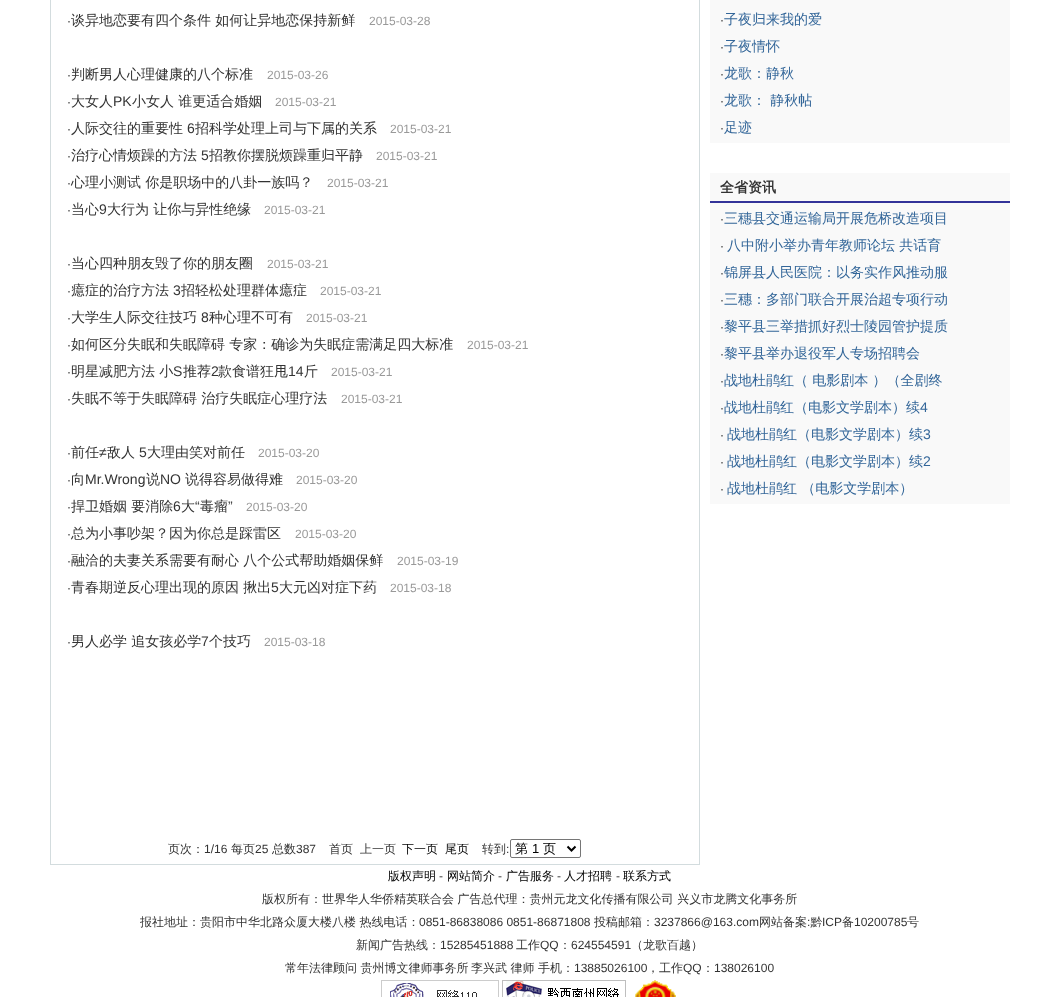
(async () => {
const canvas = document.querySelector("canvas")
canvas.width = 1059
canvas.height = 997
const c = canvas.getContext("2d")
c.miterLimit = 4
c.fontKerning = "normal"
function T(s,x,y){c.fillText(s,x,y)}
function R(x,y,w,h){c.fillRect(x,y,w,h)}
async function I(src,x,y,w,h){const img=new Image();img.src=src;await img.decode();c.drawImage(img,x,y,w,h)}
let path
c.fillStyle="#fff"
R(0,0,1059,997)
c.fillStyle="#d3dcde"
R(50,0,650,865)
c.fillStyle="#fff"
R(51,0,648,864)
c.font="12px Liberation Sans"
c.fillStyle="#333"
T("·",67,25)
c.font="500 14px WenQuanYi Zen Hei"
T("谈异地恋要有四个条件 如何让异地恋保持新鲜",71,25)
c.font="12px Liberation Sans"
c.fillStyle="#999"
T("2015-03-28",369,25)
c.fillStyle="#333"
T("·",67,79)
c.font="500 14px WenQuanYi Zen Hei"
T("判断男人心理健康的八个标准",71,79)
c.font="12px Liberation Sans"
c.fillStyle="#999"
T("2015-03-26",267,79)
c.fillStyle="#333"
T("·",67,106)
c.font="500 14px WenQuanYi Zen Hei"
T("大女人",71,106)
c.font="14px Liberation Sans"
T("PK",113,106)
c.font="500 14px WenQuanYi Zen Hei"
T("小女人 谁更适合婚姻",132,106)
c.font="12px Liberation Sans"
c.fillStyle="#999"
T("2015-03-21",275,106)
c.fillStyle="#333"
T("·",67,133)
c.font="500 14px WenQuanYi Zen Hei"
T("人际交往的重要性",71,133)
c.font="14px Liberation Sans"
T("6",187,133)
c.font="500 14px WenQuanYi Zen Hei"
T("招科学处理上司与下属的关系",195,133)
c.font="12px Liberation Sans"
c.fillStyle="#999"
T("2015-03-21",390,133)
c.fillStyle="#333"
T("·",67,160)
c.font="500 14px WenQuanYi Zen Hei"
T("治疗心情烦躁的方法",71,160)
c.font="14px Liberation Sans"
T("5",201,160)
c.font="500 14px WenQuanYi Zen Hei"
T("招教你摆脱烦躁重归平静",209,160)
c.font="12px Liberation Sans"
c.fillStyle="#999"
T("2015-03-21",376,160)
c.fillStyle="#333"
T("·",67,187)
c.font="500 14px WenQuanYi Zen Hei"
T("心理小测试 你是职场中的八卦一族吗？",71,187)
c.font="12px Liberation Sans"
c.fillStyle="#999"
T("2015-03-21",327,187)
c.fillStyle="#333"
T("·",67,214)
c.font="500 14px WenQuanYi Zen Hei"
T("当心",71,214)
c.font="14px Liberation Sans"
T("9",99,214)
c.font="500 14px WenQuanYi Zen Hei"
T("大行为 让你与异性绝缘",107,214)
c.font="12px Liberation Sans"
c.fillStyle="#999"
T("2015-03-21",264,214)
c.fillStyle="#333"
T("·",67,268)
c.font="500 14px WenQuanYi Zen Hei"
T("当心四种朋友毁了你的朋友圈",71,268)
c.font="12px Liberation Sans"
c.fillStyle="#999"
T("2015-03-21",267,268)
c.fillStyle="#333"
T("·",67,295)
c.font="500 14px WenQuanYi Zen Hei"
T("癔症的治疗方法",71,295)
c.font="14px Liberation Sans"
T("3",173,295)
c.font="500 14px WenQuanYi Zen Hei"
T("招轻松处理群体癔症",181,295)
c.font="12px Liberation Sans"
c.fillStyle="#999"
T("2015-03-21",320,295)
c.fillStyle="#333"
T("·",67,322)
c.font="500 14px WenQuanYi Zen Hei"
T("大学生人际交往技巧",71,322)
c.font="14px Liberation Sans"
T("8",201,322)
c.font="500 14px WenQuanYi Zen Hei"
T("种心理不可有",209,322)
c.font="12px Liberation Sans"
c.fillStyle="#999"
T("2015-03-21",306,322)
c.fillStyle="#333"
T("·",67,349)
c.font="500 14px WenQuanYi Zen Hei"
T("如何区分失眠和失眠障碍 专家：确诊为失眠症需满足四大标准",71,349)
c.font="12px Liberation Sans"
c.fillStyle="#999"
T("2015-03-21",467,349)
c.fillStyle="#333"
T("·",67,376)
c.font="500 14px WenQuanYi Zen Hei"
T("明星减肥方法 小",71,376)
c.font="14px Liberation Sans"
T("S",173,376)
c.font="500 14px WenQuanYi Zen Hei"
T("推荐",183,376)
c.font="14px Liberation Sans"
T("2",211,376)
c.font="500 14px WenQuanYi Zen Hei"
T("款食谱狂甩",218,376)
c.font="14px Liberation Sans"
T("14",288,376)
c.font="500 14px WenQuanYi Zen Hei"
T("斤",304,376)
c.font="12px Liberation Sans"
c.fillStyle="#999"
T("2015-03-21",331,376)
c.fillStyle="#333"
T("·",67,403)
c.font="500 14px WenQuanYi Zen Hei"
T("失眠不等于失眠障碍 治疗失眠症心理疗法",71,403)
c.font="12px Liberation Sans"
c.fillStyle="#999"
T("2015-03-21",341,403)
c.fillStyle="#333"
T("·",67,457)
c.font="500 14px WenQuanYi Zen Hei"
T("前任",71,457)
c.font="14px Liberation Sans"
T("≠",99,457)
c.font="500 14px WenQuanYi Zen Hei"
T("敌人",107,457)
c.font="14px Liberation Sans"
T("5",139,457)
c.font="500 14px WenQuanYi Zen Hei"
T("大理由笑对前任",147,457)
c.font="12px Liberation Sans"
c.fillStyle="#999"
T("2015-03-20",258,457)
c.fillStyle="#333"
T("·",67,484)
c.font="500 14px WenQuanYi Zen Hei"
T("向",71,484)
c.font="14px Liberation Sans"
T("Mr.Wrong",85,484)
c.font="500 14px WenQuanYi Zen Hei"
T("说",146,484)
c.font="14px Liberation Sans"
T("NO",160,484)
c.font="500 14px WenQuanYi Zen Hei"
T("说得容易做得难",185,484)
c.font="12px Liberation Sans"
c.fillStyle="#999"
T("2015-03-20",296,484)
c.fillStyle="#333"
T("·",67,511)
c.font="500 14px WenQuanYi Zen Hei"
T("捍卫婚姻 要消除",71,511)
c.font="14px Liberation Sans"
T("6",173,511)
c.font="500 14px WenQuanYi Zen Hei"
T("大",181,511)
c.font="14px Liberation Sans"
T("“",195,511)
c.font="500 14px WenQuanYi Zen Hei"
T("毒瘤",200,511)
c.font="14px Liberation Sans"
T("”",228,511)
c.font="12px Liberation Sans"
c.fillStyle="#999"
T("2015-03-20",246,511)
c.fillStyle="#333"
T("·",67,538)
c.font="500 14px WenQuanYi Zen Hei"
T("总为小事吵架？因为你总是踩雷区",71,538)
c.font="12px Liberation Sans"
c.fillStyle="#999"
T("2015-03-20",295,538)
c.fillStyle="#333"
T("·",67,565)
c.font="500 14px WenQuanYi Zen Hei"
T("融洽的夫妻关系需要有耐心 八个公式帮助婚姻保鲜",71,565)
c.font="12px Liberation Sans"
c.fillStyle="#999"
T("2015-03-19",397,565)
c.fillStyle="#333"
T("·",67,592)
c.font="500 14px WenQuanYi Zen Hei"
T("青春期逆反心理出现的原因 揪出",71,592)
c.font="14px Liberation Sans"
T("5",271,592)
c.font="500 14px WenQuanYi Zen Hei"
T("大元凶对症下药",279,592)
c.font="12px Liberation Sans"
c.fillStyle="#999"
T("2015-03-18",390,592)
c.fillStyle="#333"
T("·",67,646)
c.font="500 14px WenQuanYi Zen Hei"
T("男人必学 追女孩必学",71,646)
c.font="14px Liberation Sans"
T("7",201,646)
c.font="500 14px WenQuanYi Zen Hei"
T("个技巧",209,646)
c.font="12px Liberation Sans"
c.fillStyle="#999"
T("2015-03-18",264,646)
c.font="500 12px WenQuanYi Zen Hei"
c.fillStyle="#333"
T("页次：",168,853)
c.font="12px Liberation Sans"
T("1/16",204,853)
c.font="500 12px WenQuanYi Zen Hei"
T("每页",231,853)
c.font="12px Liberation Sans"
T("25",255,853)
c.font="500 12px WenQuanYi Zen Hei"
T("总数",272,853)
c.font="12px Liberation Sans"
T("387",296,853)
c.font="500 12px WenQuanYi Zen Hei"
T("首页",329,853)
T("上一页",360,853)
c.fillStyle="#000"
T("下一页",402,853)
T("尾页",445,853)
c.fillStyle="#333"
T("转到",482,853)
c.font="12px Liberation Sans"
T(":",506,853)
c.beginPath()
c.roundRect(510.5,839.5,70,18,1.5)
c.strokeStyle="#767676"
c.stroke()
path = new Path2D("M567.5 846.5l4 4l4-4")
c.strokeStyle="#000"
c.lineWidth=2
c.stroke(path)
c.font="500 13px WenQuanYi Zen Hei"
c.fillStyle="#000"
T("第",515,853)
c.font="13px Liberation Sans"
T("1",532,853)
c.font="500 13px WenQuanYi Zen Hei"
T("页",543,853)
c.fillStyle="#f9f9f9"
R(710,0,300,143)
c.font="12px Liberation Sans"
c.fillStyle="#333"
T("·",720,24)
c.font="500 14px WenQuanYi Zen Hei"
c.fillStyle="#369"
T("子夜归来我的爱",724,24)
c.font="12px Liberation Sans"
c.fillStyle="#333"
T("·",720,51)
c.font="500 14px WenQuanYi Zen Hei"
c.fillStyle="#369"
T("子夜情怀",724,51)
c.font="12px Liberation Sans"
c.fillStyle="#333"
T("·",720,78)
c.font="500 14px WenQuanYi Zen Hei"
c.fillStyle="#369"
T("龙歌：静秋",724,78)
c.font="12px Liberation Sans"
c.fillStyle="#333"
T("·",720,105)
c.font="500 14px WenQuanYi Zen Hei"
c.fillStyle="#369"
T("龙歌： 静秋帖",724,105)
c.font="12px Liberation Sans"
c.fillStyle="#333"
T("·",720,132)
c.font="500 14px WenQuanYi Zen Hei"
c.fillStyle="#369"
T("足迹",724,132)
c.fillStyle="#f9f9f9"
R(710,173,300,331)
c.fillStyle="#339"
R(710,201,300,2)
c.font="bold 14px WenQuanYi Zen Hei"
c.fillStyle="#333"
T("全省资讯",720,192)
c.font="12px Liberation Sans"
T("·",720,223)
c.font="500 14px WenQuanYi Zen Hei"
c.fillStyle="#369"
T("三穗县交通运输局开展危桥改造项目",724,223)
c.font="12px Liberation Sans"
c.fillStyle="#333"
T("·",720,250)
c.font="500 14px WenQuanYi Zen Hei"
c.fillStyle="#369"
T("八中附小举办青年教师论坛 共话育",727,250)
c.font="12px Liberation Sans"
c.fillStyle="#333"
T("·",720,277)
c.font="500 14px WenQuanYi Zen Hei"
c.fillStyle="#369"
T("锦屏县人民医院：以务实作风推动服",724,277)
c.font="12px Liberation Sans"
c.fillStyle="#333"
T("·",720,304)
c.font="500 14px WenQuanYi Zen Hei"
c.fillStyle="#369"
T("三穗：多部门联合开展治超专项行动",724,304)
c.font="12px Liberation Sans"
c.fillStyle="#333"
T("·",720,331)
c.font="500 14px WenQuanYi Zen Hei"
c.fillStyle="#369"
T("黎平县三举措抓好烈士陵园管护提质",724,331)
c.font="12px Liberation Sans"
c.fillStyle="#333"
T("·",720,358)
c.font="500 14px WenQuanYi Zen Hei"
c.fillStyle="#369"
T("黎平县举办退役军人专场招聘会",724,358)
c.font="12px Liberation Sans"
c.fillStyle="#333"
T("·",720,385)
c.font="500 14px WenQuanYi Zen Hei"
c.fillStyle="#369"
T("战地杜鹃红（ 电影剧本 ）（全剧终",724,385)
c.font="12px Liberation Sans"
c.fillStyle="#333"
T("·",720,412)
c.font="500 14px WenQuanYi Zen Hei"
c.fillStyle="#369"
T("战地杜鹃红（电影文学剧本）续",724,412)
c.font="14px Liberation Sans"
T("4",920,412)
c.font="12px Liberation Sans"
c.fillStyle="#333"
T("·",720,439)
c.font="500 14px WenQuanYi Zen Hei"
c.fillStyle="#369"
T("战地杜鹃红（电影文学剧本）续",727,439)
c.font="14px Liberation Sans"
T("3",923,439)
c.font="12px Liberation Sans"
c.fillStyle="#333"
T("·",720,466)
c.font="500 14px WenQuanYi Zen Hei"
c.fillStyle="#369"
T("战地杜鹃红（电影文学剧本）续",727,466)
c.font="14px Liberation Sans"
T("2",923,466)
c.font="12px Liberation Sans"
c.fillStyle="#333"
T("·",720,493)
c.font="500 14px WenQuanYi Zen Hei"
c.fillStyle="#369"
T("战地杜鹃红 （电影文学剧本）",727,493)
c.font="500 12px WenQuanYi Zen Hei"
c.fillStyle="#000"
T("版权声明",388,880)
c.font="12px Liberation Sans"
c.fillStyle="#333"
T("-",439,880)
c.font="500 12px WenQuanYi Zen Hei"
c.fillStyle="#000"
T("网站简介",447,880)
c.font="12px Liberation Sans"
c.fillStyle="#333"
T("-",498,880)
c.font="500 12px WenQuanYi Zen Hei"
c.fillStyle="#000"
T("广告服务",506,880)
c.font="12px Liberation Sans"
c.fillStyle="#333"
T("-",557,880)
c.font="500 12px WenQuanYi Zen Hei"
c.fillStyle="#000"
T("人才招聘",564,880)
c.font="12px Liberation Sans"
c.fillStyle="#333"
T("-",616,880)
c.font="500 12px WenQuanYi Zen Hei"
c.fillStyle="#000"
T("联系方式",623,880)
c.fillStyle="#333"
T("版权所有：世界华人华侨精英联合会 广告总代理：贵州元龙文化传播有限公司 兴义市龙腾文化事务所",262,903)
T("报社地址：贵阳市中华北路众厦大楼八楼 热线电话：",140,926)
c.font="12px Liberation Sans"
T("0851-86838086 0851-86871808",419,926)
c.font="500 12px WenQuanYi Zen Hei"
T("投稿邮箱：",594,926)
c.font="12px Liberation Sans"
T("3237866@163.com",654,926)
c.font="500 12px WenQuanYi Zen Hei"
T("网站备案 黔",759,926)
c.font="12px Liberation Sans"
T("ICP",822,926)
c.font="500 12px WenQuanYi Zen Hei"
T("备",842,926)
c.font="12px Liberation Sans"
T("10200785",854,926)
c.font="500 12px WenQuanYi Zen Hei"
T("号",907,926)
c.font="12px Liberation Sans"
T(":",807,926)
c.font="500 12px WenQuanYi Zen Hei"
T("新闻广告热线：",356,949)
c.font="12px Liberation Sans"
T("15285451888",440,949)
c.font="500 12px WenQuanYi Zen Hei"
T("工作",516,949)
c.font="12px Liberation Sans"
T("QQ",540,949)
c.font="500 12px WenQuanYi Zen Hei"
T("：",559,949)
c.font="12px Liberation Sans"
T("624554591",571,949)
c.font="500 12px WenQuanYi Zen Hei"
T("（龙歌百越）",631,949)
T("常年法律顾问 贵州博文律师事务所",285,972)
T("李兴武 律师",471,972)
T("手机：",538,972)
c.font="12px Liberation Sans"
T("13885026100",574,972)
c.font="500 12px WenQuanYi Zen Hei"
T("，工作",647,972)
c.font="12px Liberation Sans"
T("QQ",683,972)
c.font="500 12px WenQuanYi Zen Hei"
T("：",702,972)
c.font="12px Liberation Sans"
T("138026100",714,972)
await I("1.png",381,980,118,17)
await I("2.png",502,980,124,17)
await I("3.png",635,980,41,17)
})()
